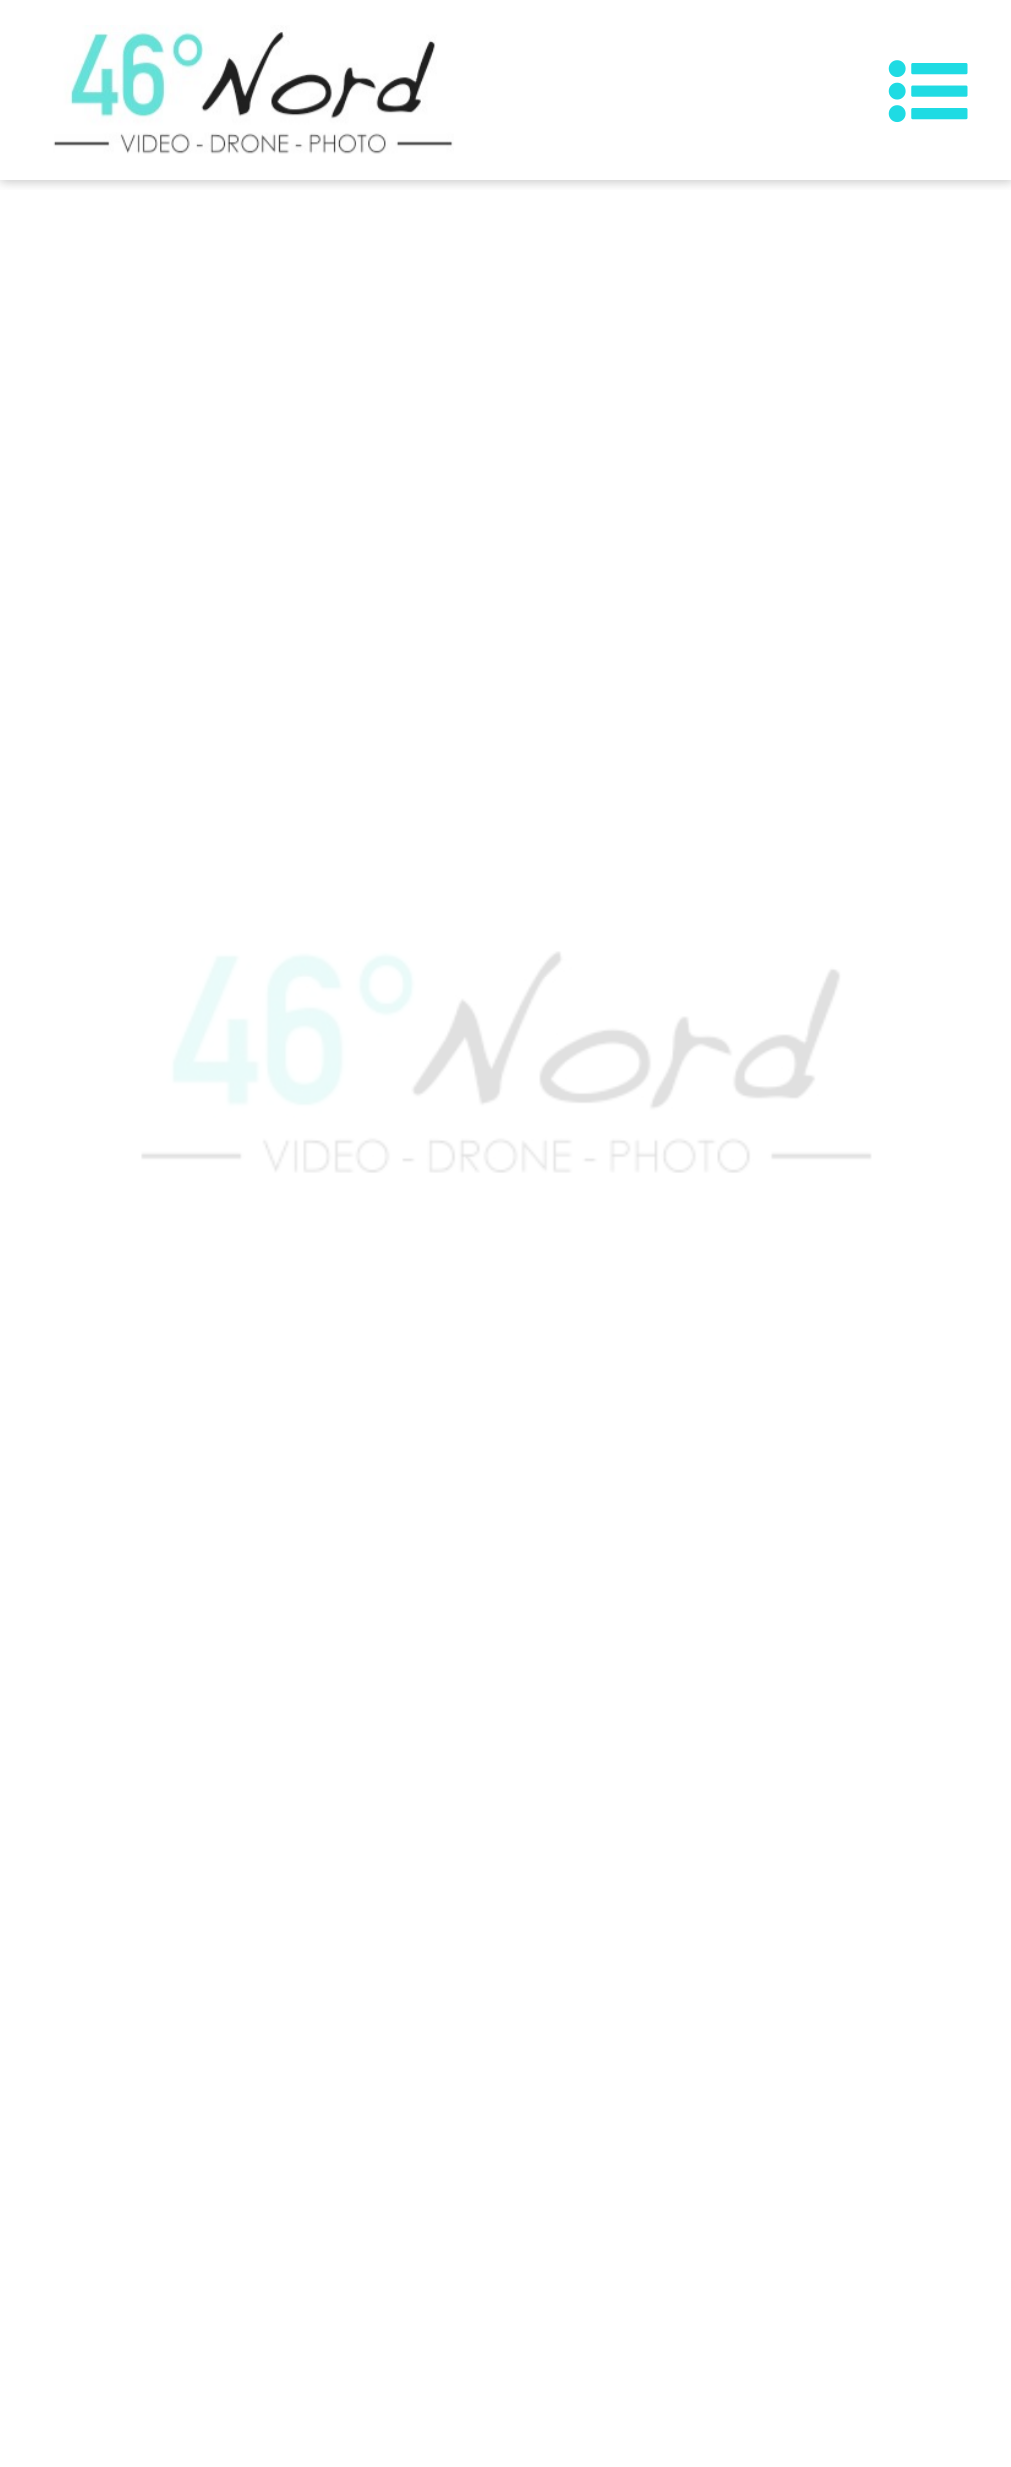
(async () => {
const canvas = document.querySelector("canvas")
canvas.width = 1011
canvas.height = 2467
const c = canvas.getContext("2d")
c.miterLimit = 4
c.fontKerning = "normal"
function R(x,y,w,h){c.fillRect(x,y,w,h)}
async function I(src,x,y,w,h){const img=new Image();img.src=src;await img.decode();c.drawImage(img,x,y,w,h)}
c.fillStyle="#fff"
R(0,0,1011,2467)
c.save()
c.beginPath()
c.rect(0,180,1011,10)
c.clip()
c.fillStyle="#1f1f1f40"
c.filter="blur(5.5px)"
c.beginPath()
c.rect(0,2,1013,180)
c.fill()
c.filter="none"
c.restore()
await I("1.png",53,25,401,129)
await I("2.png",888,60,80,63)
await I("3.png",141,951,731,222)
})()
